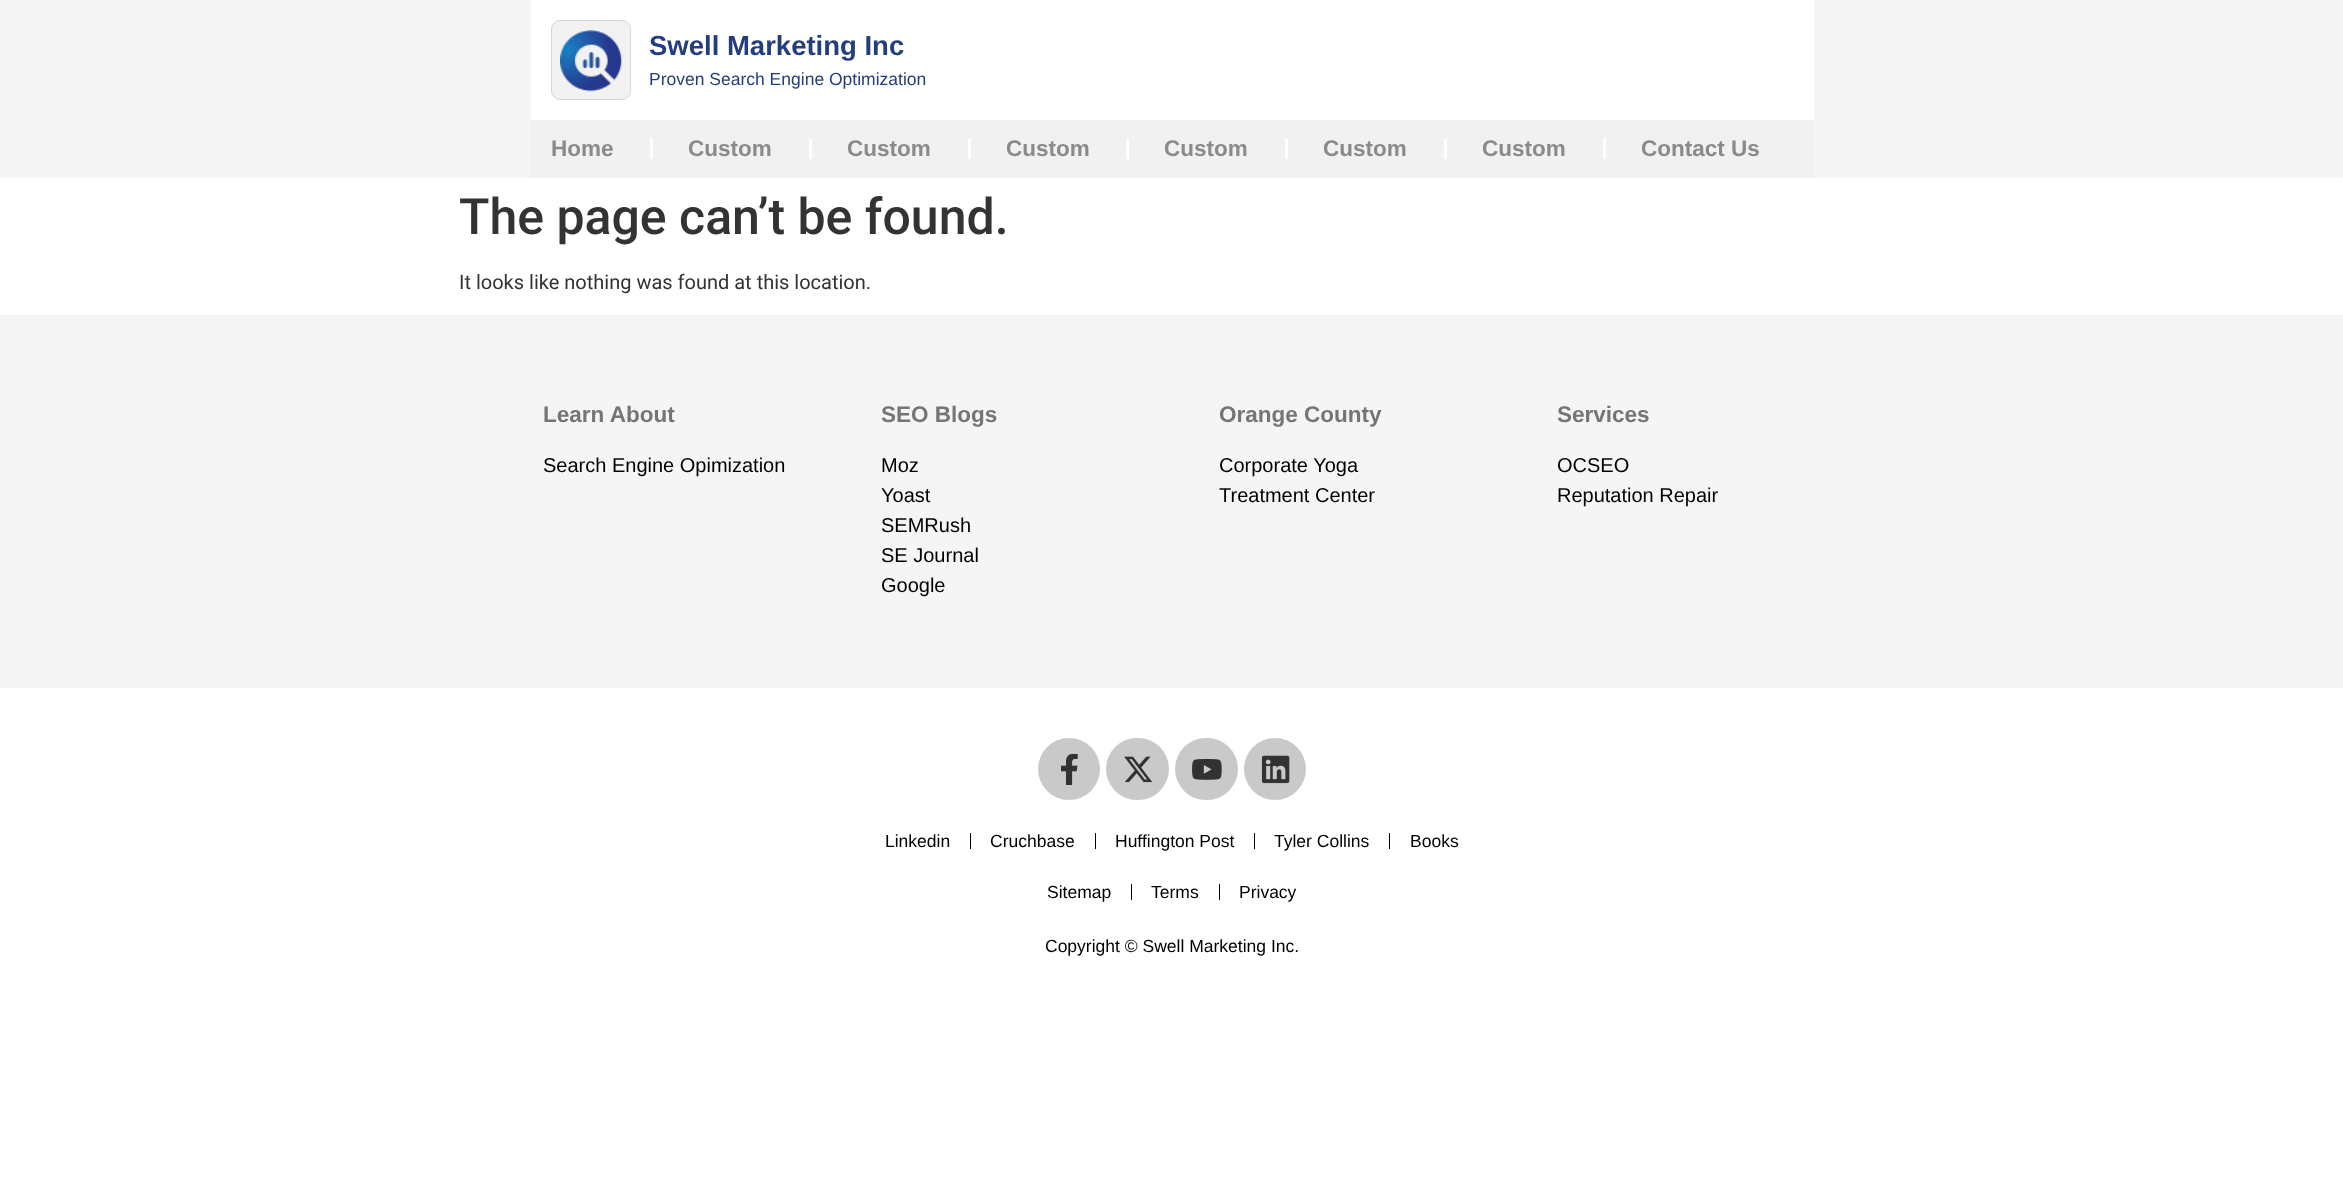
(async () => {
const canvas = document.querySelector("canvas")
canvas.width = 2343
canvas.height = 1187
const c = canvas.getContext("2d")
c.miterLimit = 4
c.fontKerning = "normal"
function T(s,x,y){c.fillText(s,x,y)}
function R(x,y,w,h){c.fillRect(x,y,w,h)}
function Q(x,y,w,h,r){c.beginPath();c.roundRect(x,y,w,h,r);c.fill()}
async function I(src,x,y,w,h){const img=new Image();img.src=src;await img.decode();c.drawImage(img,x,y,w,h)}
c.fillStyle="#fff"
R(0,0,2343,1187)
c.fillStyle="#f5f5f5"
R(0,0,2343,178)
c.fillStyle="#fff"
R(531,0,1283,120)
c.fillStyle="#f3f2f2"
c.beginPath()
c.roundRect(551.5,20.5,79,79,8.5)
c.fill()
c.strokeStyle="#d7d6d6"
c.stroke()
await I("1.png",560,30,62,62)
c.font="bold 27.5px Liberation Sans"
c.fillStyle="#233d80"
T("Swell Marketing Inc",649,55)
c.font="17.5px Liberation Sans"
T("Proven Search Engine Optimization",649,85)
c.fillStyle="#f1f1f1"
R(531,120,1283,58)
c.font="bold 22.5px Liberation Sans"
c.fillStyle="#8a8a8a"
T("Home",551,156)
c.fillStyle="#fff"
R(650,139,3,20)
c.fillStyle="#8a8a8a"
T("Custom",688,156)
c.fillStyle="#fff"
R(809,139,3,20)
c.fillStyle="#8a8a8a"
T("Custom",847,156)
c.fillStyle="#fff"
R(968,139,3,20)
c.fillStyle="#8a8a8a"
T("Custom",1006,156)
c.fillStyle="#fff"
R(1126,139,3,20)
c.fillStyle="#8a8a8a"
T("Custom",1164,156)
c.fillStyle="#fff"
R(1285,139,3,20)
c.fillStyle="#8a8a8a"
T("Custom",1323,156)
c.fillStyle="#fff"
R(1444,139,3,20)
c.fillStyle="#8a8a8a"
T("Custom",1482,156)
c.fillStyle="#fff"
R(1603,139,3,20)
c.fillStyle="#8a8a8a"
T("Contact Us",1641,156)
c.font="500 50px Roboto"
c.fillStyle="#333"
T("The page can’t be found.",459,234)
c.font="20px Roboto"
T("It looks like nothing was found at this location.",459,289)
c.fillStyle="#f5f5f5"
R(0,315,2343,373)
c.font="bold 22.5px Liberation Sans"
c.fillStyle="#787474"
T("Learn About",543,422)
c.font="20px Liberation Sans"
c.fillStyle="#000"
T("Search Engine Opimization",543,472)
c.font="bold 22.5px Liberation Sans"
c.fillStyle="#787474"
T("SEO Blogs",881,422)
c.font="20px Liberation Sans"
c.fillStyle="#000"
T("Moz",881,472)
T("Yoast",881,502)
T("SEMRush",881,532)
T("SE Journal",881,562)
T("Google",881,592)
c.font="bold 22.5px Liberation Sans"
c.fillStyle="#787474"
T("Orange County",1219,422)
c.font="20px Liberation Sans"
c.fillStyle="#000"
T("Corporate Yoga",1219,472)
T("Treatment Center",1219,502)
c.font="bold 22.5px Liberation Sans"
c.fillStyle="#787474"
T("Services",1557,422)
c.font="20px Liberation Sans"
c.fillStyle="#000"
T("OCSEO",1557,472)
T("Reputation Repair",1557,502)
c.fillStyle="#c9c9c9"
c.beginPath()
c.arc(1069,769,31,0,7)
c.fill()
await I("2.png",1061,754,17,31)
Q(1106,738,63,62,31)
await I("3.png",1124,756,28,27)
Q(1175,738,63,62,31)
await I("4.png",1192,758,30,22)
c.beginPath()
c.arc(1275,769,31,0,7)
c.fill()
await I("5.png",1261,755,29,29)
c.font="17.5px Liberation Sans"
c.fillStyle="#000"
T("Linkedin",885,847)
R(970,833,1,16)
T("Cruchbase",990,847)
R(1095,833,1,16)
T("Huffington Post",1115,847)
R(1254,833,1,16)
T("Tyler Collins",1274,847)
R(1389,833,1,16)
T("Books",1410,847)
T("Sitemap",1047,898)
R(1131,884,1,16)
T("Terms",1151,898)
R(1219,884,1,16)
T("Privacy",1239,898)
T("Copyright © Swell Marketing Inc.",1045,952)
})()
